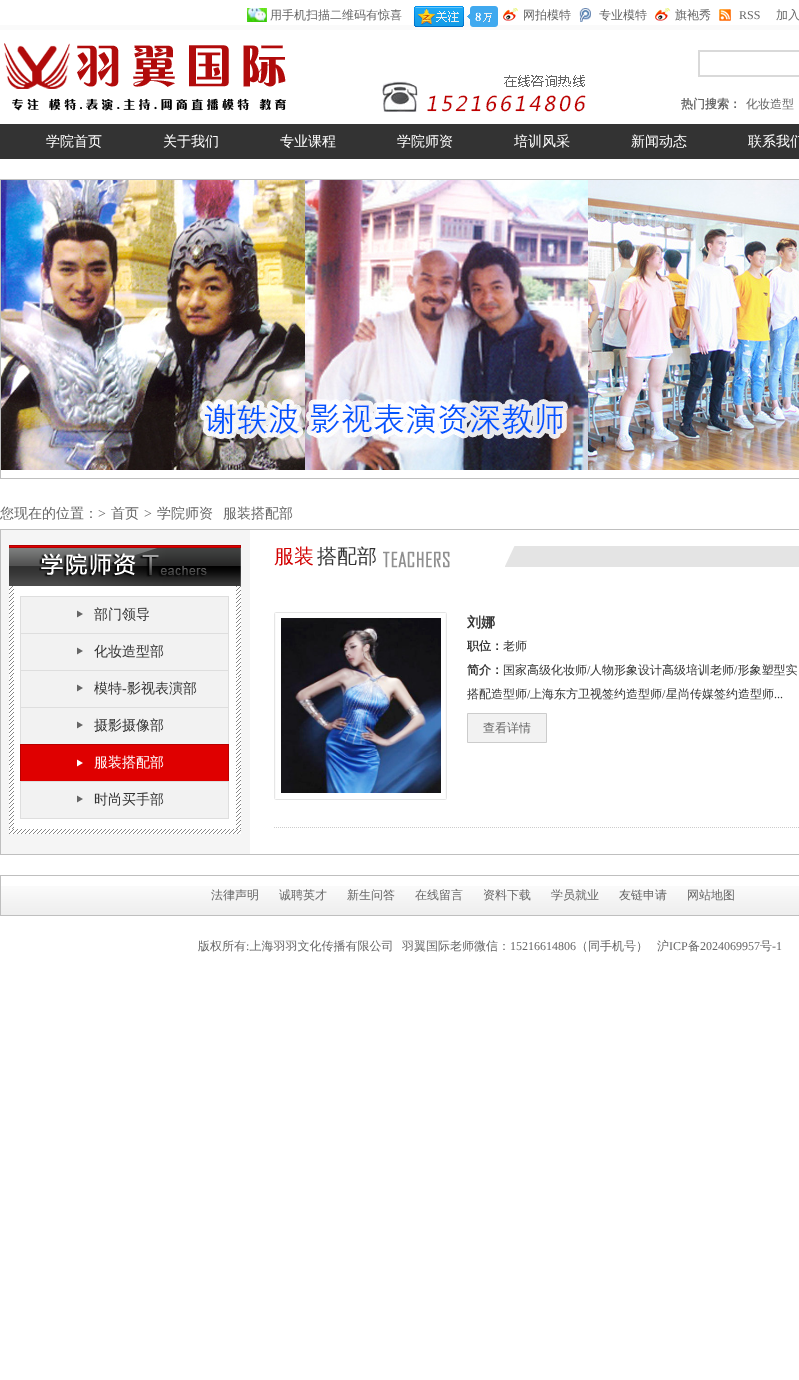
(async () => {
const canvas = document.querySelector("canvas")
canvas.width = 799
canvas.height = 1380
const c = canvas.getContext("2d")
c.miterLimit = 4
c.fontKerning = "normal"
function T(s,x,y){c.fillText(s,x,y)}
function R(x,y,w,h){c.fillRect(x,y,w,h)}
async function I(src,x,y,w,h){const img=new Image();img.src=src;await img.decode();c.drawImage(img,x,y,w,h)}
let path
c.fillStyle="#fff"
R(0,0,799,1380)
c.fillStyle="#fafafa"
R(0,25,799,5)
await I("1.png",247,8,20,14)
c.font="500 12px WenQuanYi Zen Hei"
c.fillStyle="#666"
T("用手机扫描二维码有惊喜",270,19)
await I("2.png",413,6,85,21)
await I("3.png",503,8,16,13)
T("网拍模特",523,19)
await I("4.png",579,8,12,14)
T("专业模特",599,19)
await I("3.png",655,8,16,13)
T("旗袍秀",675,19)
await I("5.png",719,9,12,12)
c.font="12px Liberation Serif"
T("RSS",739,19)
c.font="500 12px WenQuanYi Zen Hei"
T("加入",776,19)
await I("6.png",382,75,204,37)
await I("7.png",4,43,282,68)
await I("8.png",698,50,101,27)
c.font="bold 12px WenQuanYi Zen Hei"
T("热门搜索：",681,108)
c.font="500 12px WenQuanYi Zen Hei"
T("化妆造型",746,108)
c.fillStyle="#333"
R(0,124,799,35)
c.font="500 14px WenQuanYi Zen Hei"
c.fillStyle="#fff"
T("学院首页",46,146)
T("关于我们",163,146)
T("专业课程",280,146)
T("学院师资",397,146)
T("培训风采",514,146)
T("新闻动态",631,146)
T("联系我们",748,146)
c.strokeStyle="#bfbfbf"
c.strokeRect(.5,179.5,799,299)
await I("9.png",1,180,798,290)
c.fillStyle="#666"
T("您现在的位置：",0,518)
c.font="14px Liberation Serif"
T(">",98,518)
c.font="500 14px WenQuanYi Zen Hei"
T("首页",111,518)
c.font="14px Liberation Serif"
T(">",144,518)
c.font="500 14px WenQuanYi Zen Hei"
T("学院师资",157,518)
T("服装搭配部",223,518)
c.fillStyle="#f5f5f5"
R(1,530,249,324)
c.strokeRect(.5,529.5,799,325)
await I("10.png",9,545,232,41)
await I("11.png",39,553,168,24)
await I("12.png",9,829,232,5)
await I("13.png",9,586,232,243)
await I("14.png",20,596,209,37)
c.fillStyle="#333"
T("部门领导",94,619)
await I("14.png",20,633,209,37)
T("化妆造型部",94,656)
await I("14.png",20,670,209,37)
T("模特",94,693)
c.font="14px Liberation Serif"
T("-",122,693)
c.font="500 14px WenQuanYi Zen Hei"
T("影视表演部",127,693)
await I("14.png",20,707,209,37)
T("摄影摄像部",94,730)
await I("15.png",20,744,209,37)
c.fillStyle="#fff"
T("服装搭配部",94,767)
await I("14.png",20,781,209,37)
c.fillStyle="#dedede"
R(20,818,209,1)
c.fillStyle="#333"
T("时尚买手部",94,804)
await I("16.png",505,546,294,21)
c.font="500 20px WenQuanYi Zen Hei"
c.fillStyle="#d20000"
T("服装",274,563)
c.fillStyle="#333"
T("搭配部",317,563)
await I("17.png",383,551,67,17)
path = new Path2D("M274 827.5h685")
c.strokeStyle="#ccc"
c.setLineDash([1,1])
c.stroke(path)
await I("18.png",274,612,173,188)
c.font="bold 14px WenQuanYi Zen Hei"
T("刘娜",467,627)
c.font="bold 12px WenQuanYi Zen Hei"
T("职位：",467,650)
c.font="500 12px WenQuanYi Zen Hei"
T("老师",503,650)
c.font="bold 12px WenQuanYi Zen Hei"
T("简介：",467,674)
c.font="500 12px WenQuanYi Zen Hei"
T("国家高级化妆师",503,674)
c.font="12px Liberation Serif"
T("/",587,674)
c.font="500 12px WenQuanYi Zen Hei"
T("人物形象设计高级培训老师 形象塑型实",590,674)
c.font="12px Liberation Serif"
T("/",734,674)
c.font="500 12px WenQuanYi Zen Hei"
T("搭配造型师",467,698)
c.font="12px Liberation Serif"
T("/",527,698)
c.font="500 12px WenQuanYi Zen Hei"
T("上海东方卫视签约造型师",530,698)
c.font="12px Liberation Serif"
T("/",662,698)
c.font="500 12px WenQuanYi Zen Hei"
T("星尚传媒签约造型师",666,698)
c.font="12px Liberation Serif"
T("...",774,698)
c.fillStyle="#f2f2f2"
c.beginPath()
c.rect(467.5,713.5,79,29)
c.fill()
c.setLineDash([])
c.stroke()
c.font="500 12px WenQuanYi Zen Hei"
c.fillStyle="#666"
T("查看详情",483,732)
await I("19.png",1,886,798,29)
c.strokeStyle="#bfbfbf"
c.strokeRect(.5,875.5,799,40)
T("法律声明",211,899)
T("诚聘英才",279,899)
T("新生问答",347,899)
T("在线留言",415,899)
T("资料下载",483,899)
T("学员就业",551,899)
T("友链申请",619,899)
T("网站地图",687,899)
T("版权所有 上海羽羽文化传播有限公司",198,950)
T("羽翼国际老师微信：",402,950)
c.font="12px Liberation Serif"
T("15216614806",510,950)
c.font="500 12px WenQuanYi Zen Hei"
T("（同手机号）",576,950)
T("沪",657,950)
c.font="12px Liberation Serif"
T("ICP",669,950)
c.font="500 12px WenQuanYi Zen Hei"
T("备",688,950)
c.font="12px Liberation Serif"
T("2024069957",700,950)
c.font="500 12px WenQuanYi Zen Hei"
T("号",760,950)
c.font="12px Liberation Serif"
T("-1",772,950)
T(":",246,950)
})()
